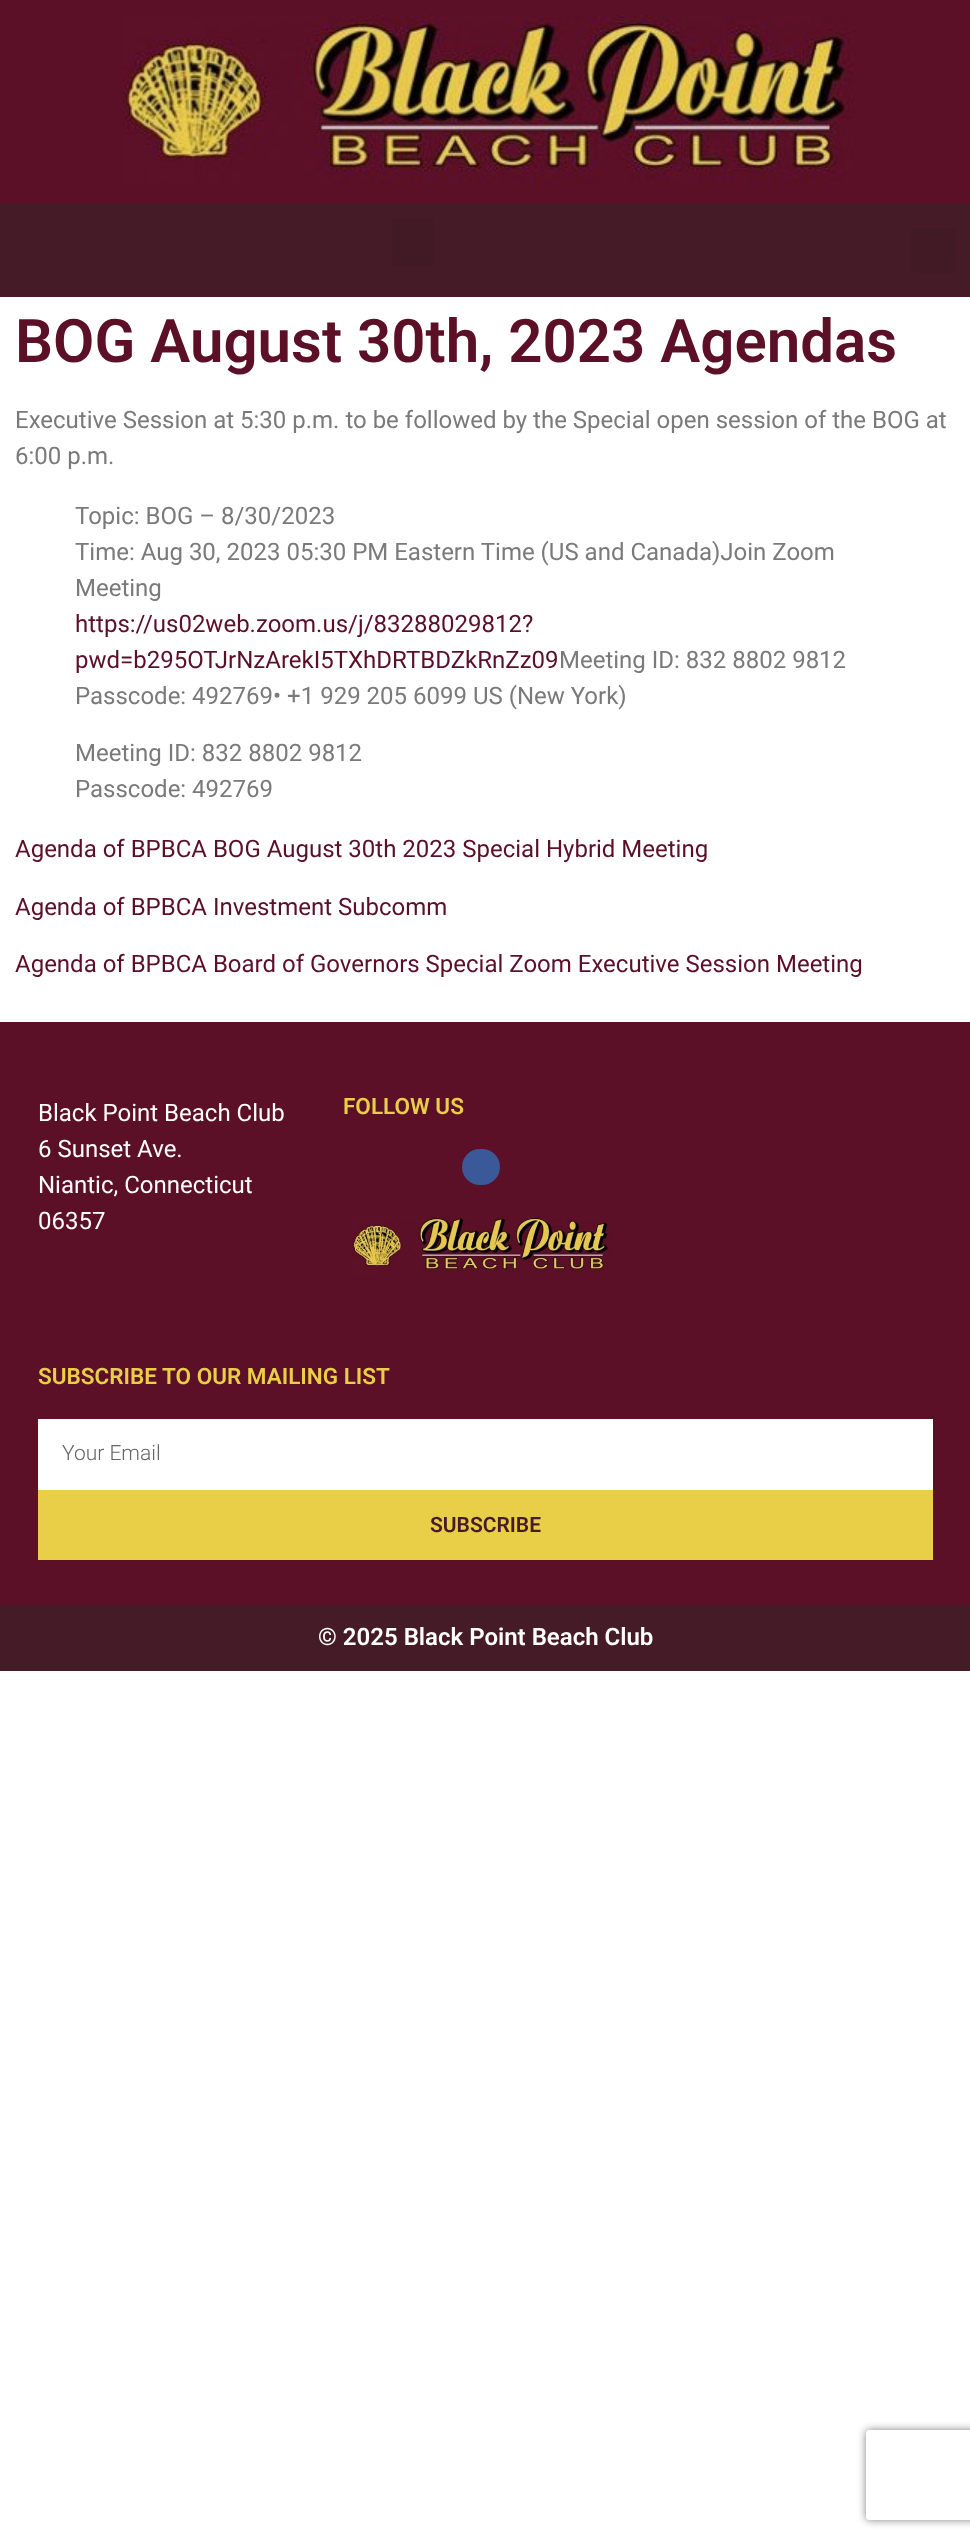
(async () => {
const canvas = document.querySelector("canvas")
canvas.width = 970
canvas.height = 2540
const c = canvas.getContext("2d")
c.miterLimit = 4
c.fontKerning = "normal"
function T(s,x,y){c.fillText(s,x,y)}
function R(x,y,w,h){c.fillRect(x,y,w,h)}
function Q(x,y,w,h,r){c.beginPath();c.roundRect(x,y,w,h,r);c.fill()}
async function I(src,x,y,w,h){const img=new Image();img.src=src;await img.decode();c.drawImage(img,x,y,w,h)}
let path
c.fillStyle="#fff"
R(0,0,970,2540)
c.fillStyle="#5b1028"
R(0,0,970,203)
await I("1.png",123,15,732,169)
c.fillStyle="#451b28"
R(0,203,970,94)
c.fillStyle="#421a26"
Q(392,218,42,49,5)
Q(911,228,45,45,5)
c.font="600 60px Roboto"
c.fillStyle="#5b1028"
T("BOG August 30th, 2023 Agendas",15,362)
c.font="24px Roboto"
c.fillStyle="#7a7a7a"
T("Executive Session at 5:30 p.m. to be followed by the Special open session of the BOG at",15,428)
T("6:00 p.m.",15,464)
T("Topic: BOG – 8/30/2023",75,524)
T("Time: Aug 30, 2023 05:30 PM Eastern Time (US and Canada)Join Zoom",75,560)
T("Meeting",75,596)
c.fillStyle="#5b1028"
T("https://us02web.zoom.us/j/83288029812?",75,632)
T("pwd=b295OTJrNzArekI5TXhDRTBDZkRnZz09",75,668)
c.fillStyle="#7a7a7a"
T("Meeting ID: 832 8802 9812",559,668)
T("Passcode: 492769• +1 929 205 6099 US (New York)",75,704)
T("Meeting ID: 832 8802 9812",75,761)
T("Passcode: 492769",75,797)
c.fillStyle="#5b1028"
T("Agenda of BPBCA BOG August 30th 2023 Special Hybrid Meeting",15,857)
T("Agenda of BPBCA Investment Subcomm",15,915)
T("Agenda of BPBCA Board of Governors Special Zoom Executive Session Meeting",15,972)
R(0,1022,970,583)
c.fillStyle="#fff"
T("Black Point Beach Club",38,1121)
T("6 Sunset Ave.",38,1157)
T("Niantic, Connecticut",38,1193)
T("06357",38,1229)
c.font="600 22.5px Roboto"
c.fillStyle="#e9cf48"
T("FOLLOW US",343,1114)
c.fillStyle="#3b5998"
Q(462,1149,38,36,18)
await I("2.png",352,1215,260,60)
c.fillStyle="#e9cf48"
T("SUBSCRIBE TO OUR MAILING LIST",38,1384)
c.fillStyle="#fff"
R(38,1419,895,71)
c.font="300 21px Roboto"
c.fillStyle="#666"
T("Your Email",62,1460)
c.fillStyle="#e9cf48"
R(38,1490,895,70)
c.font="600 21px Roboto"
c.fillStyle="#451b28"
T("SUBSCRIBE",430,1532)
R(0,1605,970,66)
c.font="600 24px Roboto"
c.fillStyle="#fff"
T("© 2025 Black Point Beach Club",318,1645)
c.save()
path = new Path2D("M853 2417h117v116h-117zm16 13h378c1.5 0 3 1.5 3 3v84c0 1.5-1.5 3-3 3h-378c-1.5 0-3-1.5-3-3v-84c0-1.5 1.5-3 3-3z")
c.clip(path,"evenodd")
c.fillStyle="#808080"
c.filter="blur(4px)"
c.beginPath()
c.roundRect(866,2430,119,90,3)
c.fill()
c.filter="none"
c.restore()
})()
